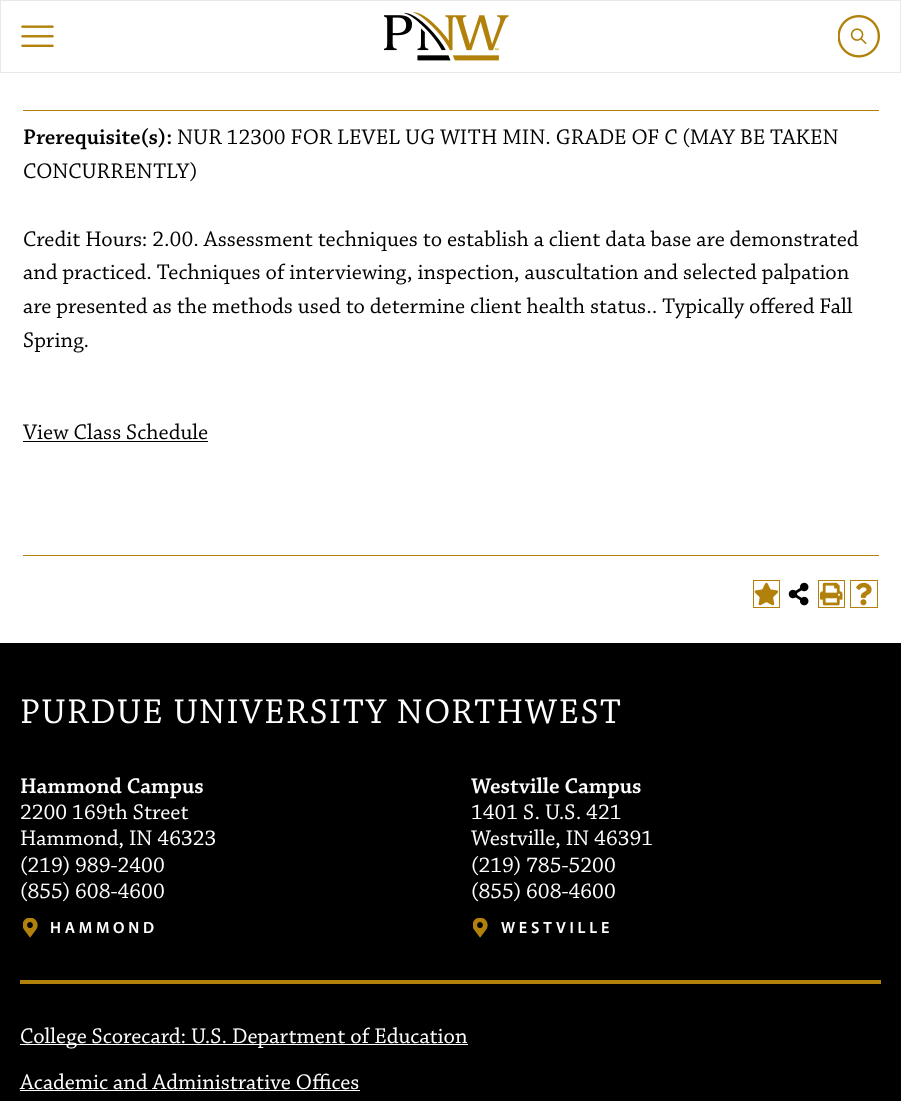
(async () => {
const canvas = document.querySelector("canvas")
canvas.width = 901
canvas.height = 1101
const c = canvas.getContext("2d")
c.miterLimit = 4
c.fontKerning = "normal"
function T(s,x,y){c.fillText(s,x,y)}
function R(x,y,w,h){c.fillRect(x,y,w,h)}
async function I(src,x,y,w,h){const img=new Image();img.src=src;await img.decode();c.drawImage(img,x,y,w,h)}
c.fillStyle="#fff"
R(0,0,901,1101)
c.strokeStyle="#e8e8e8"
c.strokeRect(.5,.5,900,72)
await I("1.png",21,25,33,22)
await I("2.png",384,12,125,49)
await I("3.png",838,15,42,43)
c.fillStyle="#b1810b"
R(23,110,856,1)
c.font="600 22.5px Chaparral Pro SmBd"
c.fillStyle="#000"
T("Prerequisite(s):",23,144)
c.font="22.5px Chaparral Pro"
T("NUR 12300 FOR LEVEL UG WITH MIN. GRADE OF C (MAY BE TAKEN",177,144)
T("CONCURRENTLY)",23,178)
T("Credit Hours: 2.00. Assessment techniques to establish a client data base are demonstrated",23,246)
T("and practiced. Techniques of interviewing, inspection, auscultation and selected palpation",23,279)
T("are presented as the methods used to determine client health status.. Typically offered Fall",23,313)
T("Spring.",23,347)
T("View Class Schedule",23,439)
R(23,441,185,1)
c.fillStyle="#b1810b"
R(23,555,856,1)
c.strokeStyle="#b1810b"
c.strokeRect(753.5,580.5,26,27)
await I("4.png",754,582,25,24)
await I("5.png",788,582,21,24)
c.strokeRect(818.5,580.5,26,27)
await I("6.png",820,582,23,24)
c.strokeRect(850.5,580.5,27,27)
await I("7.png",856,582,16,24)
c.fillStyle="#000"
R(0,643,901,458)
c.letterSpacing="1.4px"
c.font="36.25px Chaparral Pro"
c.fillStyle="#fff"
T("PURDUE UNIVERSITY NORTHWEST",20,723)
c.letterSpacing="0px"
c.font="600 22.5px Chaparral Pro SmBd"
T("Hammond Campus",20,793)
c.font="22.5px Chaparral Pro"
T("2200 169th Street",20,819)
T("Hammond, IN 46323",20,845)
T("(219) 989-2400",20,872)
T("(855) 608-4600",20,898)
await I("8.png",23,918,15,20)
c.letterSpacing="3.75px"
c.font="600 16.25px Myriad"
T("HAMMOND",50,933)
c.letterSpacing="0px"
c.font="600 22.5px Chaparral Pro SmBd"
T("Westville Campus",471,793)
c.font="22.5px Chaparral Pro"
T("1401 S. U.S. 421",471,819)
T("Westville, IN 46391",471,845)
T("(219) 785-5200",471,872)
T("(855) 608-4600",471,898)
await I("8.png",473,918,15,20)
c.letterSpacing="3.75px"
c.font="600 16.25px Myriad"
T("WESTVILLE",501,933)
c.fillStyle="#b1810b"
R(20,980,861,4)
c.fillStyle="#fff"
R(20,1044,448,1)
c.letterSpacing="0px"
c.font="22.5px Chaparral Pro"
T("College Scorecard: U.S. Department of Education",20,1043)
T("Academic and Administrative Offices",20,1089)
R(20,1090,340,1)
})()
